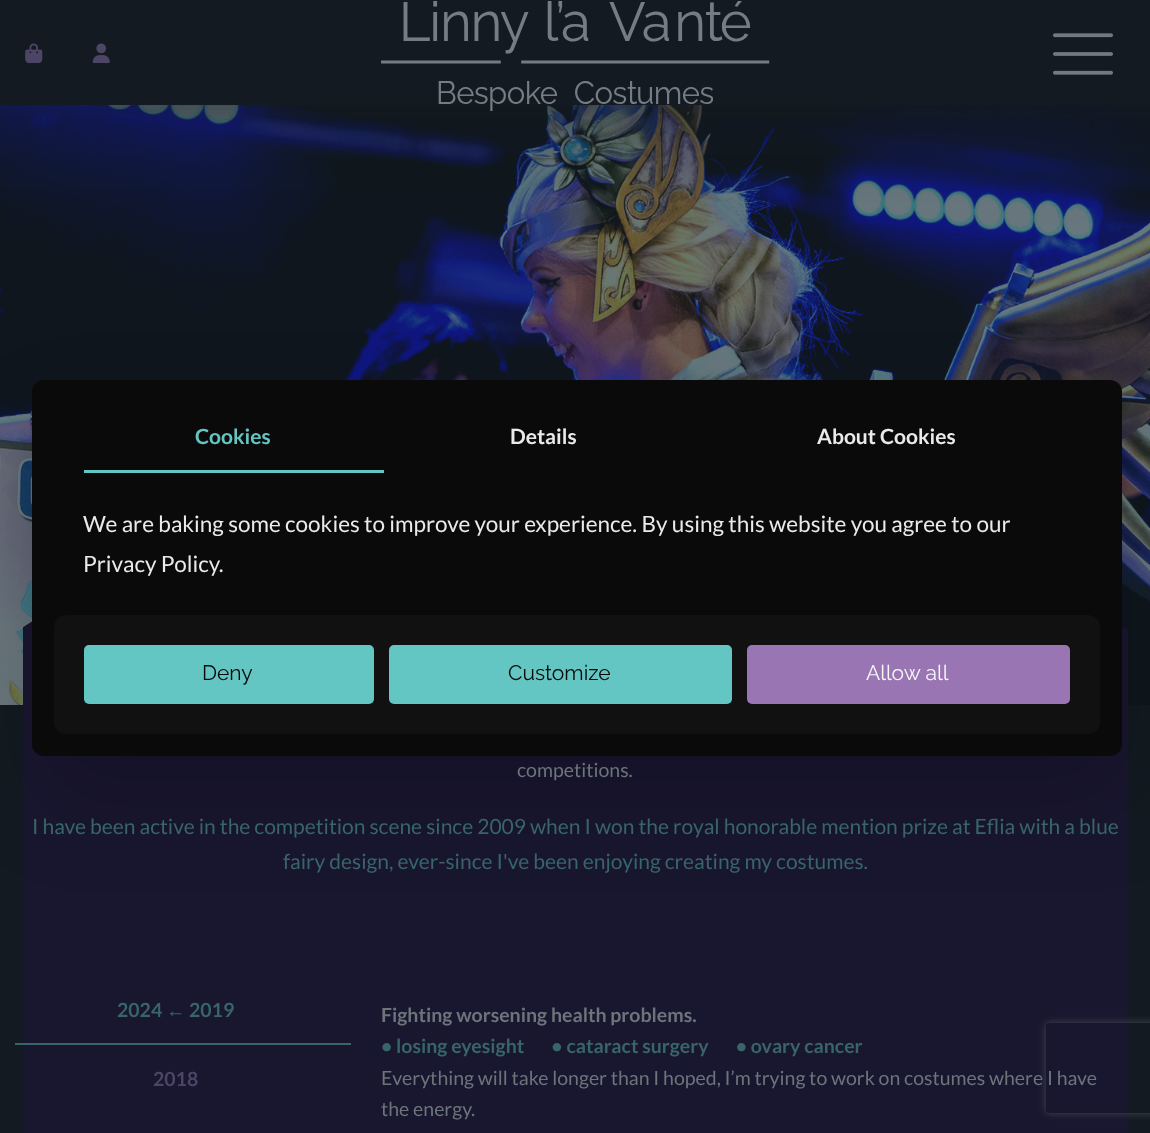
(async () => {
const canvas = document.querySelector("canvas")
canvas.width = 1150
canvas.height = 1133
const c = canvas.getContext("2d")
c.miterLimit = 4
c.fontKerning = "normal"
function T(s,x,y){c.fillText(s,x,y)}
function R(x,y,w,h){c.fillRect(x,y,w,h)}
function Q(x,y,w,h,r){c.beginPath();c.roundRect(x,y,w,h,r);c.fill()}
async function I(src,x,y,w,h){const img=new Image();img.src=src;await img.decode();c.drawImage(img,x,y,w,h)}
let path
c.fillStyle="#131a21"
R(0,0,1150,1133)
await I("5.png",0,105,1150,600)
c.fillStyle="#191630"
path = new Path2D("M22 630c222-150 553-150 1106 0z")
c.fill(path)
c.save()
c.beginPath()
c.rect(23,480,1105,150)
c.clip()
path = new Path2D("M22.5 630c221-150 552.5-150 1105.5 0z")
c.strokeStyle="#191630"
c.lineWidth=4.1
c.stroke(path)
c.restore()
R(23,630,1105,503)
c.fillStyle="#0000002e"
c.filter="blur(45px)"
c.beginPath()
c.roundRect(41,425,1090,376,12)
c.fill()
c.filter="none"
c.fillStyle="#0a0a0a"
Q(32,380,1090,376,12)
c.font="bold 21px Lato"
c.fillStyle="#64c6c2"
T("Cookies",195,444)
R(84,470,300,3)
c.fillStyle="#eaeaea"
T("Details",510,444)
T("About Cookies",817,444)
c.font="22.5px Lato"
T("We are baking some cookies to improve your experience. By using this website you agree to our",83,532)
T("Privacy Policy.",83,572)
c.fillStyle="#111"
Q(54,615,1046,119,12)
c.fillStyle="#64c6c2"
Q(84,645,290,59,5)
c.font="100 21px Raleway"
c.fillStyle="#0a0a0a"
T("Deny",202,680)
c.fillStyle="#64c6c2"
Q(389,645,343,59,5)
c.fillStyle="#0a0a0a"
T("Customize",508,680)
c.fillStyle="#9a75b4"
Q(747,645,323,59,5)
c.fillStyle="#f7f7f7"
T("Allow all",866,680)
await I("1.png",25,43,18,20)
await I("2.png",92,43,18,20)
await I("3.png",381,1,389,110)
await I("4.png",1053,33,60,42)
c.font="19.5px Lato"
c.fillStyle="#6d747a"
T("competitions.",517,777)
c.font="21px Lato"
c.fillStyle="#37656a"
T("I have been active in the competition scene since 2009 when I won the royal honorable mention prize at Eflia with a blue",32,834)
T("fairy design, ever-since I've been enjoying creating my costumes.",283,869)
c.font="bold 19.5px Lato"
T("2024",117,1017)
c.font="bold 19.5px Liberation Sans"
T("←",166,1017)
c.font="bold 19.5px Lato"
T("2019",189,1017)
R(15,1043,336,2)
c.fillStyle="#4d4565"
T("2018",153,1086)
c.fillStyle="#6d747a"
T("Fighting worsening health problems.",381,1022)
c.fillStyle="#37656a"
T("• losing eyesight   • cataract surgery   • ovary cancer",381,1053)
c.font="19.5px Lato"
c.fillStyle="#6d747a"
T("Everything will take longer than I hoped, I’m trying to work on costumes where I have",381,1085)
T("the energy.",381,1116)
c.save()
path = new Path2D("M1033 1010h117v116h-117zm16 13h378c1.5 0 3 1.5 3 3v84c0 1.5-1.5 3-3 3h-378c-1.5 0-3-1.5-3-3v-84c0-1.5 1.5-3 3-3z")
c.clip(path,"evenodd")
c.fillStyle="#424950"
c.filter="blur(4px)"
c.beginPath()
c.roundRect(1046,1023,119,90,3)
c.fill()
c.filter="none"
c.restore()
})()
